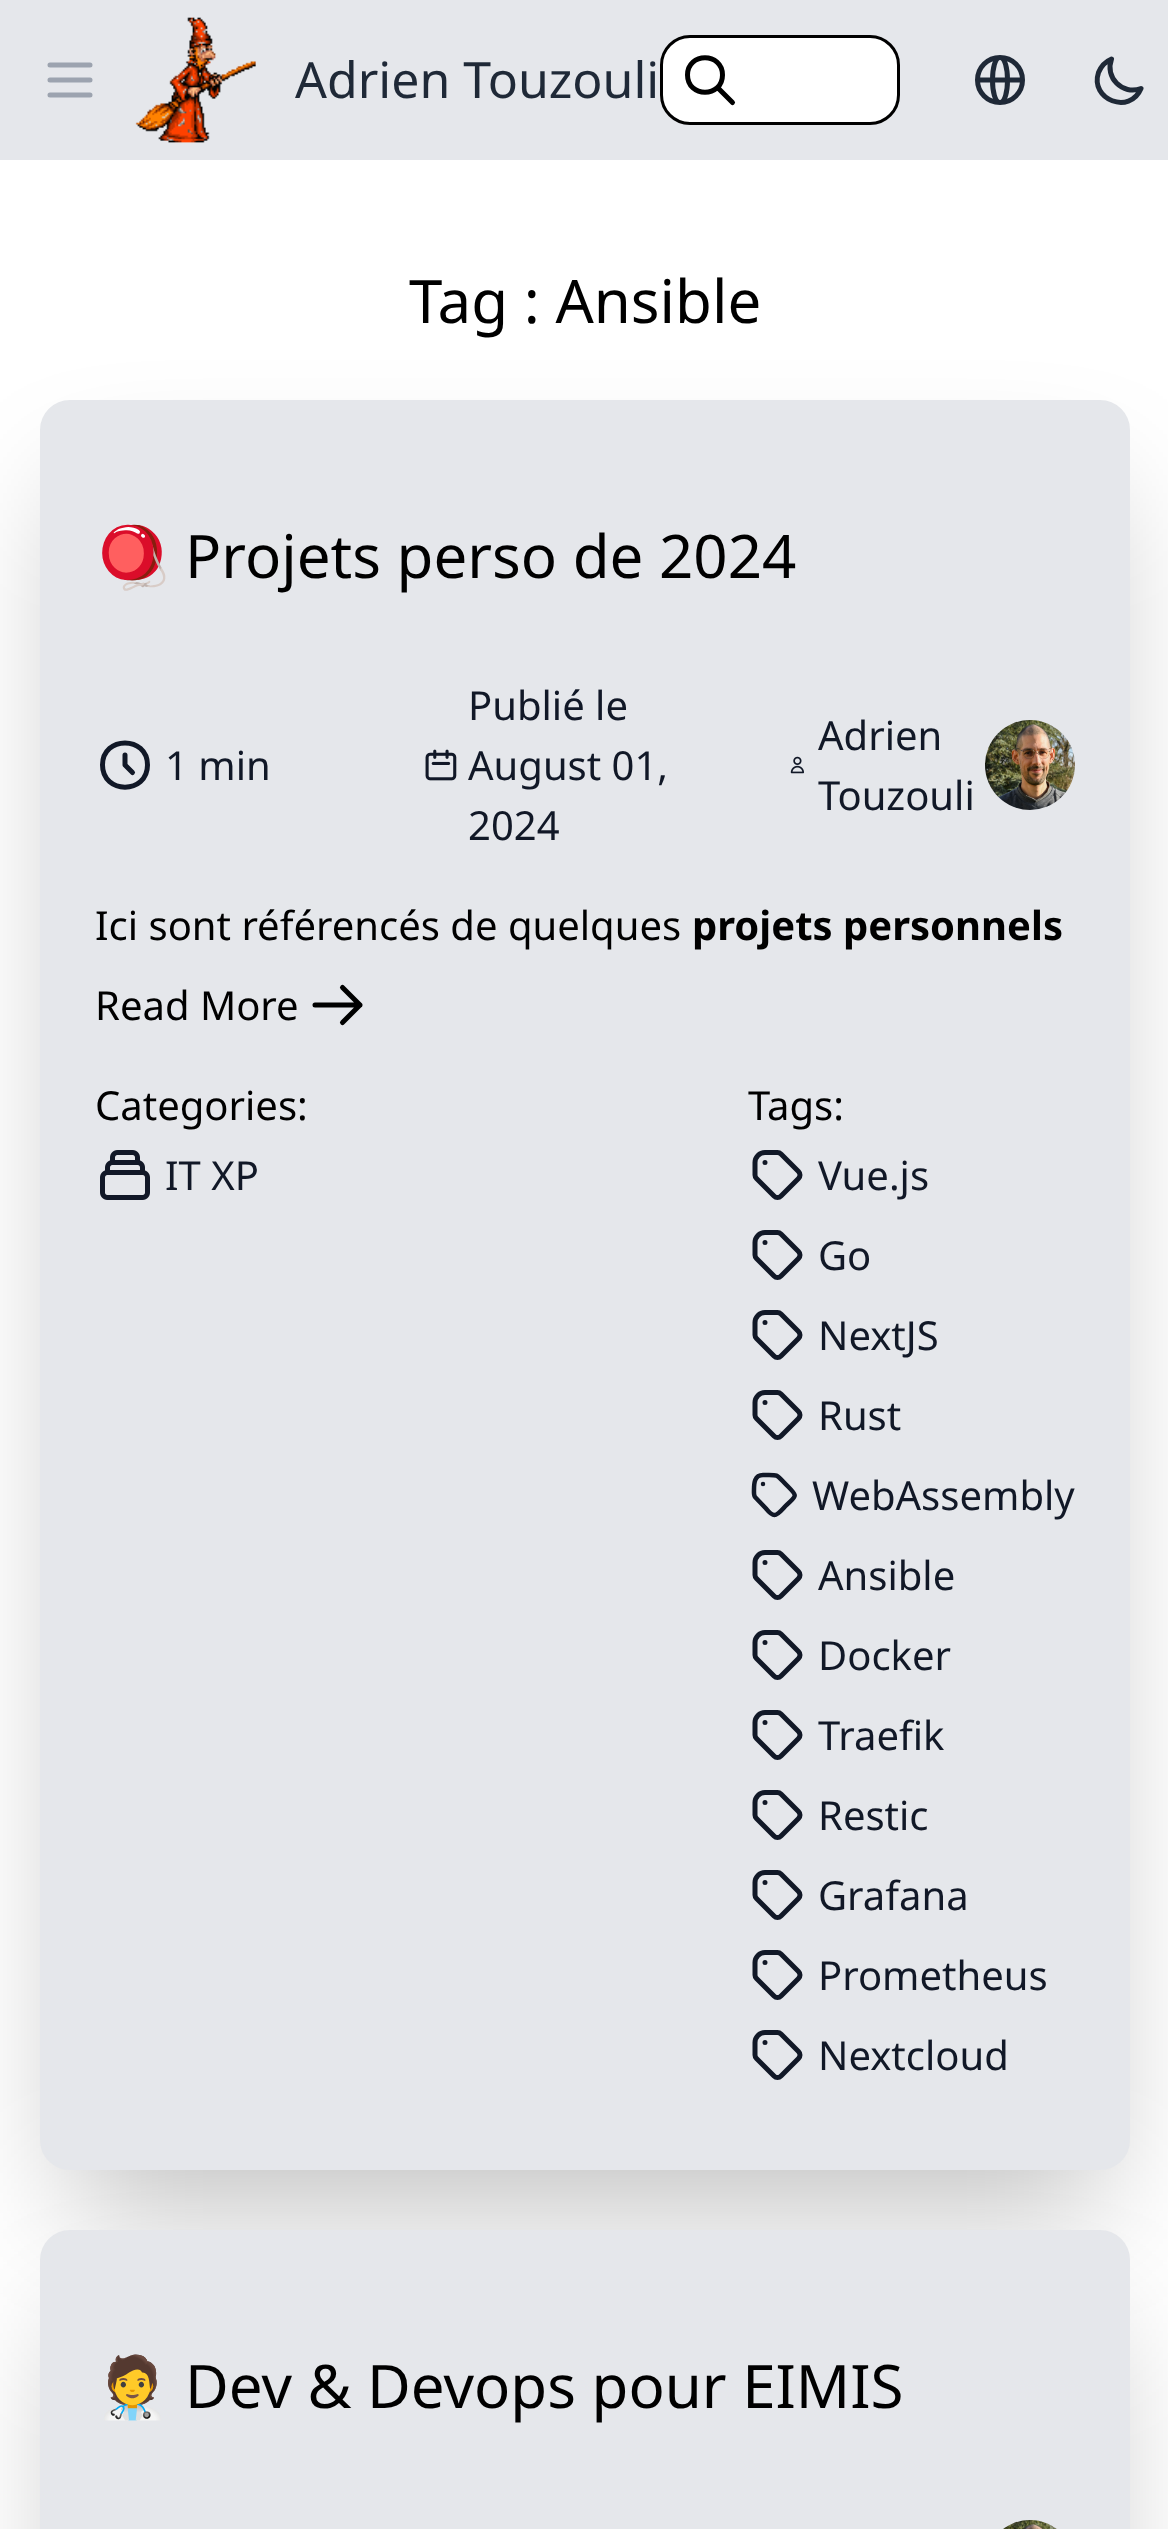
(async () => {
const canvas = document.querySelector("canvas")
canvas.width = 1168
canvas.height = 2529
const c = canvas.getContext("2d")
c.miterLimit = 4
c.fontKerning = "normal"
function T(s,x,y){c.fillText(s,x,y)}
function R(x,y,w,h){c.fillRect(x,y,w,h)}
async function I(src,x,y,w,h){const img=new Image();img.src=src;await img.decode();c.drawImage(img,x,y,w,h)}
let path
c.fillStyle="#fff"
R(0,0,1168,2529)
c.fillStyle="#e5e7eb"
R(0,0,1168,160)
path = new Path2D("M50 65h40m-40 15h40m-40 15h40")
c.strokeStyle="#9ca3af"
c.lineWidth=5
c.lineCap="round"
c.lineJoin="round"
c.stroke(path)
await I("1.png",135,17,121,126)
c.font="50px Noto Sans"
c.fillStyle="#1f2937"
T("Adrien Touzouli",295,98)
c.fillStyle="#fff"
c.beginPath()
c.roundRect(661.5,36.5,237,87,28.5)
c.fill()
c.strokeStyle="#000"
c.lineWidth=3
c.lineJoin="miter"
c.stroke()
path = new Path2D("M732.5 102.5l-15-15m5-12.5c0 23-35 23-35 0c0-23 35-23 35 0z")
c.lineWidth=5
c.lineJoin="round"
c.stroke(path)
path = new Path2D("M1022.5 80c0 12.5-10 22.5-22.5 22.5m22.5-22.5c0-12.5-10-22.5-22.5-22.5m22.5 22.5h-45m22.5 22.5c-12.5 0-22.5-10-22.5-22.5m22.5 22.5c10 0 10-45 0-45m0 45c-10 0-10-45 0-45m-22.5 22.5c0-12.5 10-22.5 22.5-22.5")
c.strokeStyle="#1f2937"
c.stroke(path)
path = new Path2D("M1141 88.5c-18.5 7-36.5-11-29.5-29.5c-6 2.5-10.5 7.5-13 13.5c-9 27.5 31.5 42.5 42.5 16z")
c.stroke(path)
c.font="60px Noto Sans"
c.fillStyle="#000"
T("Tag : Ansible",409,323)
c.fillStyle="#00000040"
c.filter="blur(62.5px)"
c.beginPath()
c.rect(70,493,1030,1710)
c.fill()
c.filter="none"
c.fillStyle="#e5e7eb"
c.beginPath()
c.roundRect(42.5,402.5,1085,1765,27.5)
c.fill()
c.strokeStyle="#e5e7eb"
c.lineJoin="miter"
c.stroke()
c.font="60px Noto Color Emoji"
c.fillStyle="#000"
T("🪀",95,578)
c.font="60px Noto Sans"
T("Projets perso de 2024",185,578)
path = new Path2D("M125 755v10l7.5 7.5m15-7.5c0 29.5-45 29.5-45 0c0-29.5 45-29.5 45 0z")
c.strokeStyle="#111827"
c.lineJoin="round"
c.stroke(path)
c.font="40px Noto Sans"
c.fillStyle="#111827"
T("1 min",165,780)
await I("2.png",425,749,32,32)
T("Publié le",468,720)
T("August 01,",468,780)
T("2024",468,840)
await I("3.png",790,756,14,18)
T("Adrien",818,750)
T("Touzouli",818,810)
await I("4.png",985,720,90,90)
c.fillStyle="#000"
T("Ici sont référencés de quelques",95,940)
c.font="bold 40px Noto Sans"
T("projets personnels",692,940)
c.font="40px Noto Sans"
T("Read More",95,1020)
path = new Path2D("M342.5 987.5l17.5 17.5m0 0l-17.5 17.5m17.5-17.5h-45")
c.strokeStyle="#000"
c.stroke(path)
T("Categories:",95,1120)
await I("5.png",100,1150,50,50)
c.fillStyle="#111827"
T("IT XP",165,1190)
c.fillStyle="#000"
T("Tags:",748,1120)
path = new Path2D("M765 1162.5h0m0-10h12.5c1.5 0 2.5 .5 3.5 1.5l17.5 17.5c2 2 2 5 0 7l-17.5 17.5c-2 2-5 2-7 0l-17.5-17.5c-1-1-1.5-2-1.5-3.5v-12.5c0-5.5 4.5-10 10-10z")
c.strokeStyle="#111827"
c.stroke(path)
c.fillStyle="#111827"
T("Vue.js",818,1190)
path = new Path2D("M765 1242.5h0m0-10h12.5c1.5 0 2.5 .5 3.5 1.5l17.5 17.5c2 2 2 5 0 7l-17.5 17.5c-2 2-5 2-7 0l-17.5-17.5c-1-1-1.5-2-1.5-3.5v-12.5c0-5.5 4.5-10 10-10z")
c.stroke(path)
T("Go",818,1270)
path = new Path2D("M765 1322.5h0m0-10h12.5c1.5 0 2.5 .5 3.5 1.5l17.5 17.5c2 2 2 5 0 7l-17.5 17.5c-2 2-5 2-7 0l-17.5-17.5c-1-1-1.5-2-1.5-3.5v-12.5c0-5.5 4.5-10 10-10z")
c.stroke(path)
T("NextJS",818,1350)
path = new Path2D("M765 1402.5h0m0-10h12.5c1.5 0 2.5 .5 3.5 1.5l17.5 17.5c2 2 2 5 0 7l-17.5 17.5c-2 2-5 2-7 0l-17.5-17.5c-1-1-1.5-2-1.5-3.5v-12.5c0-5.5 4.5-10 10-10z")
c.stroke(path)
T("Rust",818,1430)
path = new Path2D("M763 1484h0m0-9c17 0 12-1.5 25 11.5c10.5 10.5 8 9-2.5 19.5c-2.5 2.5-7.5 9-11 9c-3.5 0-6.5-4-8.5-6.5l-11-11.5c-1.5-2-1-5-1-7.5c0-6.5 .5-14.5 9-14.5z")
c.lineWidth=4.5
c.stroke(path)
T("WebAssembly",812,1510)
path = new Path2D("M765 1562.5h0m0-10h12.5c1.5 0 2.5 .5 3.5 1.5l17.5 17.5c2 2 2 5 0 7l-17.5 17.5c-2 2-5 2-7 0l-17.5-17.5c-1-1-1.5-2-1.5-3.5v-12.5c0-5.5 4.5-10 10-10z")
c.lineWidth=5
c.stroke(path)
T("Ansible",818,1590)
path = new Path2D("M765 1642.5h0m0-10h12.5c1.5 0 2.5 .5 3.5 1.5l17.5 17.5c2 2 2 5 0 7l-17.5 17.5c-2 2-5 2-7 0l-17.5-17.5c-1-1-1.5-2-1.5-3.5v-12.5c0-5.5 4.5-10 10-10z")
c.stroke(path)
T("Docker",818,1670)
path = new Path2D("M765 1722.5h0m0-10h12.5c1.5 0 2.5 .5 3.5 1.5l17.5 17.5c2 2 2 5 0 7l-17.5 17.5c-2 2-5 2-7 0l-17.5-17.5c-1-1-1.5-2-1.5-3.5v-12.5c0-5.5 4.5-10 10-10z")
c.stroke(path)
T("Traefik",818,1750)
path = new Path2D("M765 1802.5h0m0-10h12.5c1.5 0 2.5 .5 3.5 1.5l17.5 17.5c2 2 2 5 0 7l-17.5 17.5c-2 2-5 2-7 0l-17.5-17.5c-1-1-1.5-2-1.5-3.5v-12.5c0-5.5 4.5-10 10-10z")
c.stroke(path)
T("Restic",818,1830)
path = new Path2D("M765 1882.5h0m0-10h12.5c1.5 0 2.5 .5 3.5 1.5l17.5 17.5c2 2 2 5 0 7l-17.5 17.5c-2 2-5 2-7 0l-17.5-17.5c-1-1-1.5-2-1.5-3.5v-12.5c0-5.5 4.5-10 10-10z")
c.stroke(path)
T("Grafana",818,1910)
path = new Path2D("M765 1962.5h0m0-10h12.5c1.5 0 2.5 .5 3.5 1.5l17.5 17.5c2 2 2 5 0 7l-17.5 17.5c-2 2-5 2-7 0l-17.5-17.5c-1-1-1.5-2-1.5-3.5v-12.5c0-5.5 4.5-10 10-10z")
c.stroke(path)
T("Prometheus",818,1990)
path = new Path2D("M765 2042.5h0m0-10h12.5c1.5 0 2.5 .5 3.5 1.5l17.5 17.5c2 2 2 5 0 7l-17.5 17.5c-2 2-5 2-7 0l-17.5-17.5c-1-1-1.5-2-1.5-3.5v-12.5c0-5.5 4.5-10 10-10z")
c.stroke(path)
T("Nextcloud",818,2070)
c.fillStyle="#00000040"
c.filter="blur(62.5px)"
c.beginPath()
c.rect(70,2323,1030,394)
c.fill()
c.filter="none"
c.fillStyle="#e5e7eb"
c.beginPath()
c.roundRect(42.5,2232.5,1085,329,27.5)
c.fill()
c.strokeStyle="#e5e7eb"
c.lineJoin="miter"
c.stroke()
c.font="60px Noto Color Emoji"
c.fillStyle="#000"
T("🧑‍⚕",95,2408)
c.font="60px Noto Sans"
T("Dev & Devops pour EIMIS",185,2408)
await I("6.png",1003,2520,54,9)
})()
